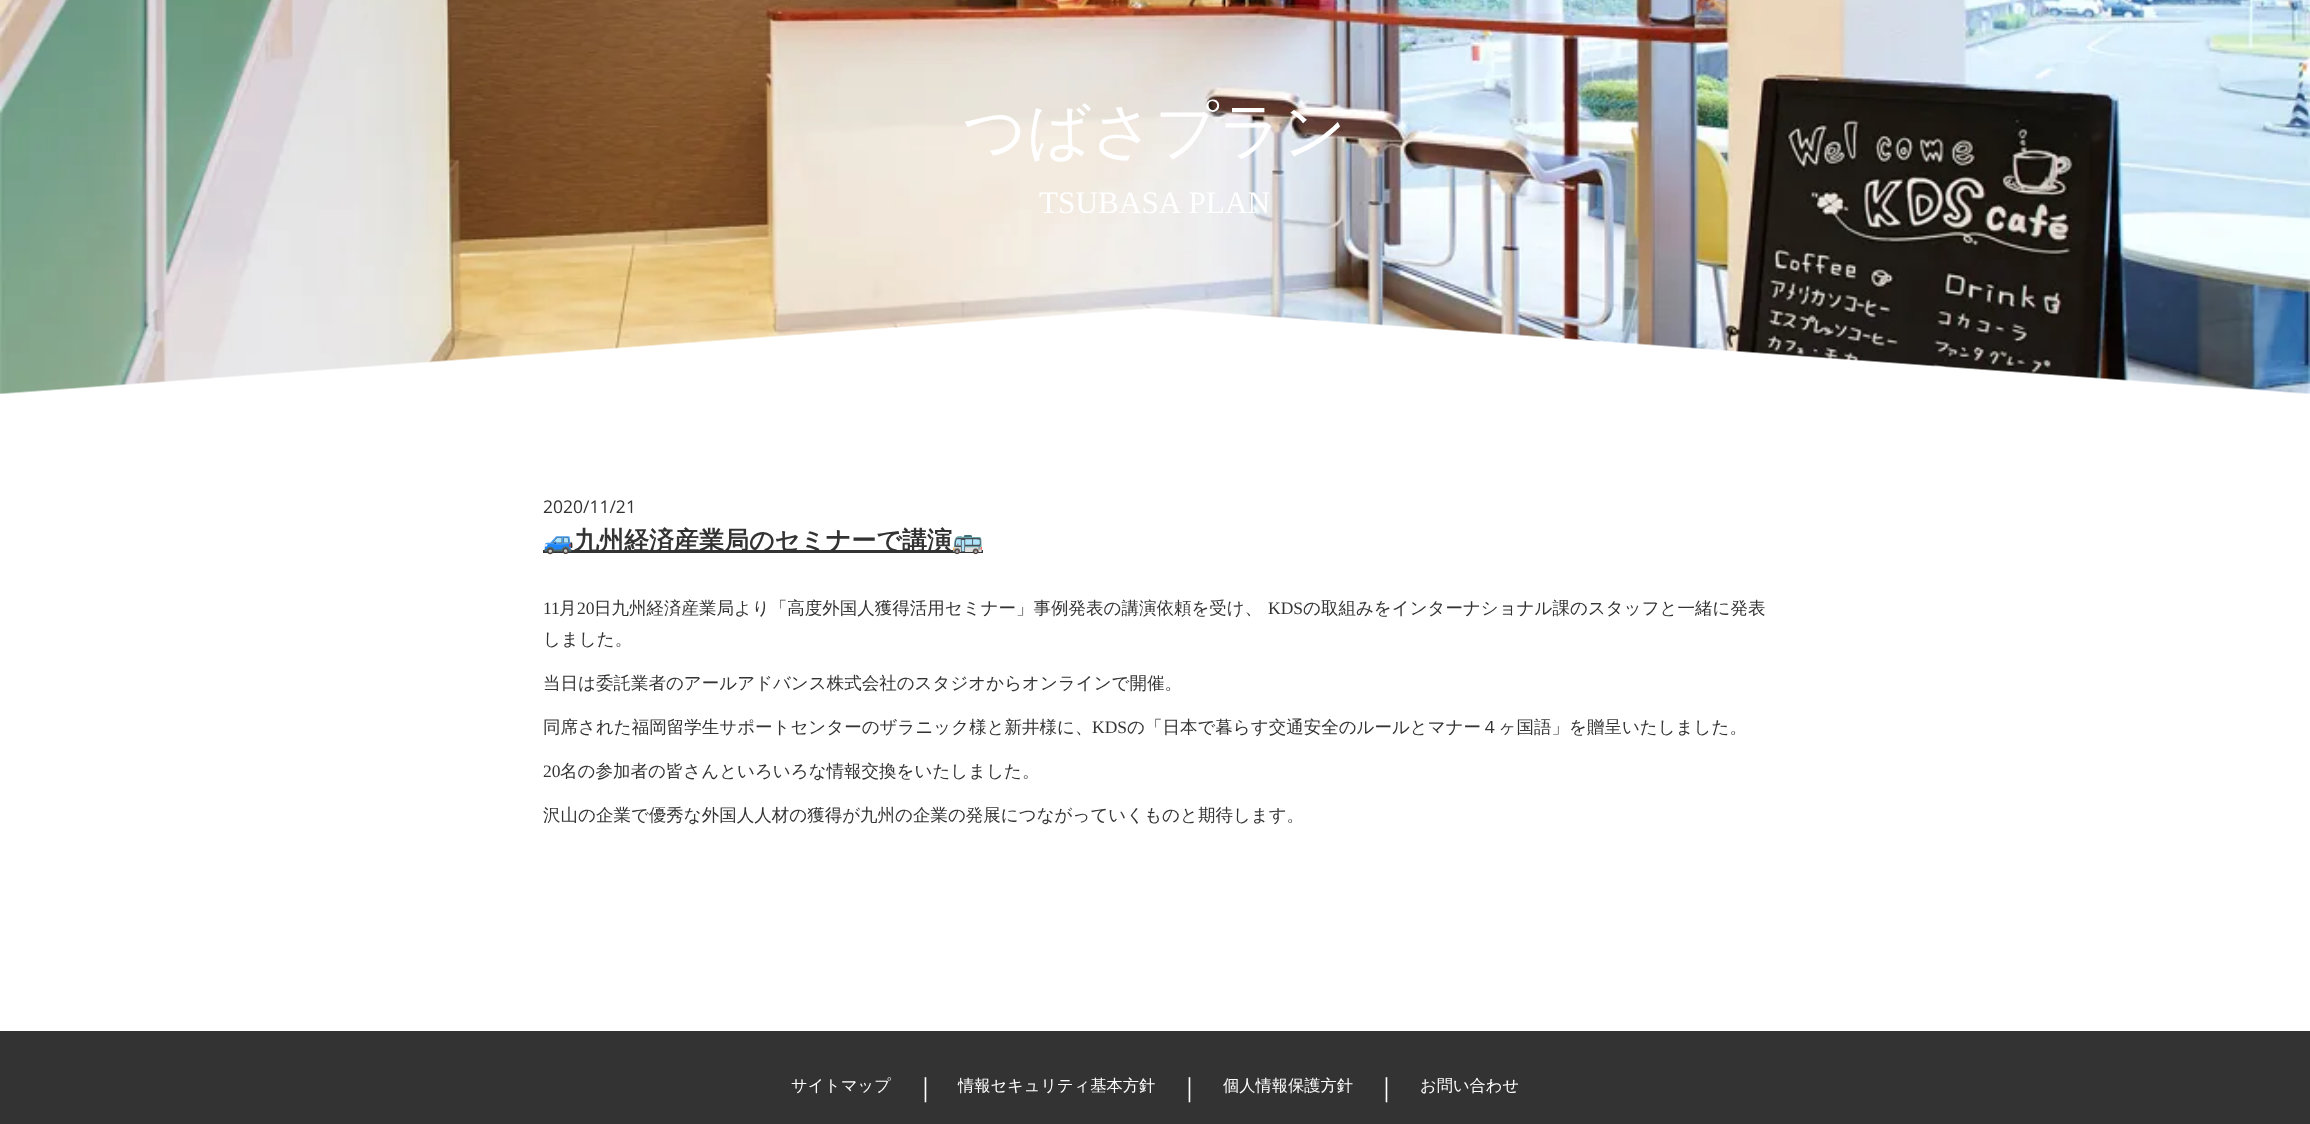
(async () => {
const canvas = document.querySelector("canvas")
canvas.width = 2310
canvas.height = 1124
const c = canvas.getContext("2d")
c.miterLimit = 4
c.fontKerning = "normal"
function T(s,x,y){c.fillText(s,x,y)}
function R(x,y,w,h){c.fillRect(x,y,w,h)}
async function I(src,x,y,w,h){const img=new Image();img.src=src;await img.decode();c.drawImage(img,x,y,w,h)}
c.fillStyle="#fff"
R(0,0,2310,1124)
await I("1.png",0,0,2310,394)
c.font="500 62.5px WenQuanYi Zen Hei"
T("つばさプラン",963,152)
c.wordSpacing="1px"
c.font="31.25px Liberation Serif"
T("TSUBASA PLAN",1039,213)
c.wordSpacing="0px"
c.font="17.5px Open Sans"
c.fillStyle="#333"
T("2020/11/21",543,513)
R(543,550,440,3)
c.font="bold 25px Noto Color Emoji"
T("🚙",543,549)
c.font="bold 25px WenQuanYi Zen Hei"
T("九州経済産業局のセミナーで講演",574,549)
c.font="bold 25px Noto Color Emoji"
T("🚌",952,549)
c.font="17.5px Liberation Serif"
T("11",543,614)
c.font="500 17.5px WenQuanYi Zen Hei"
T("月",559,614)
c.font="17.5px Liberation Serif"
T("20",577,614)
c.font="500 17.5px WenQuanYi Zen Hei"
T("日九州経済産業局より「高度外国人獲得活用セミナー」事例発表の講演依頼を受け、",594,614)
c.font="17.5px Liberation Serif"
T("KDS",1268,614)
c.font="500 17.5px WenQuanYi Zen Hei"
T("の取組みをインターナショナル課のスタッフと一緒に発表",1303,614)
T("しました。",543,645)
T("当日は委託業者のアールアドバンス株式会社のスタジオからオンラインで開催。",543,689)
T("同席された福岡留学生サポートセンターのザラニック様と新井様に、",543,733)
c.font="17.5px Liberation Serif"
T("KDS",1092,733)
c.font="500 17.5px WenQuanYi Zen Hei"
T("の「日本で暮らす交通安全のルールとマナー４ヶ国語」を贈呈いたしました。",1127,733)
c.font="17.5px Liberation Serif"
T("20",543,777)
c.font="500 17.5px WenQuanYi Zen Hei"
T("名の参加者の皆さんといろいろな情報交換をいたしました。",560,777)
T("沢山の企業で優秀な外国人人材の獲得が九州の企業の発展につながっていくものと期待します。",543,821)
R(0,1031,2310,93)
c.font="500 16.25px WenQuanYi Zen Hei"
c.fillStyle="#fff"
T("サイトマップ",791,1091)
c.font="500 25px WenQuanYi Zen Hei"
T("｜",913,1096)
c.font="500 16.25px WenQuanYi Zen Hei"
T("情報セキュリティ基本方針",958,1091)
c.font="500 25px WenQuanYi Zen Hei"
T("｜",1177,1096)
c.font="500 16.25px WenQuanYi Zen Hei"
T("個人情報保護方針",1223,1091)
c.font="500 25px WenQuanYi Zen Hei"
T("｜",1374,1096)
c.font="500 16.25px WenQuanYi Zen Hei"
T("お問い合わせ",1420,1091)
})()
